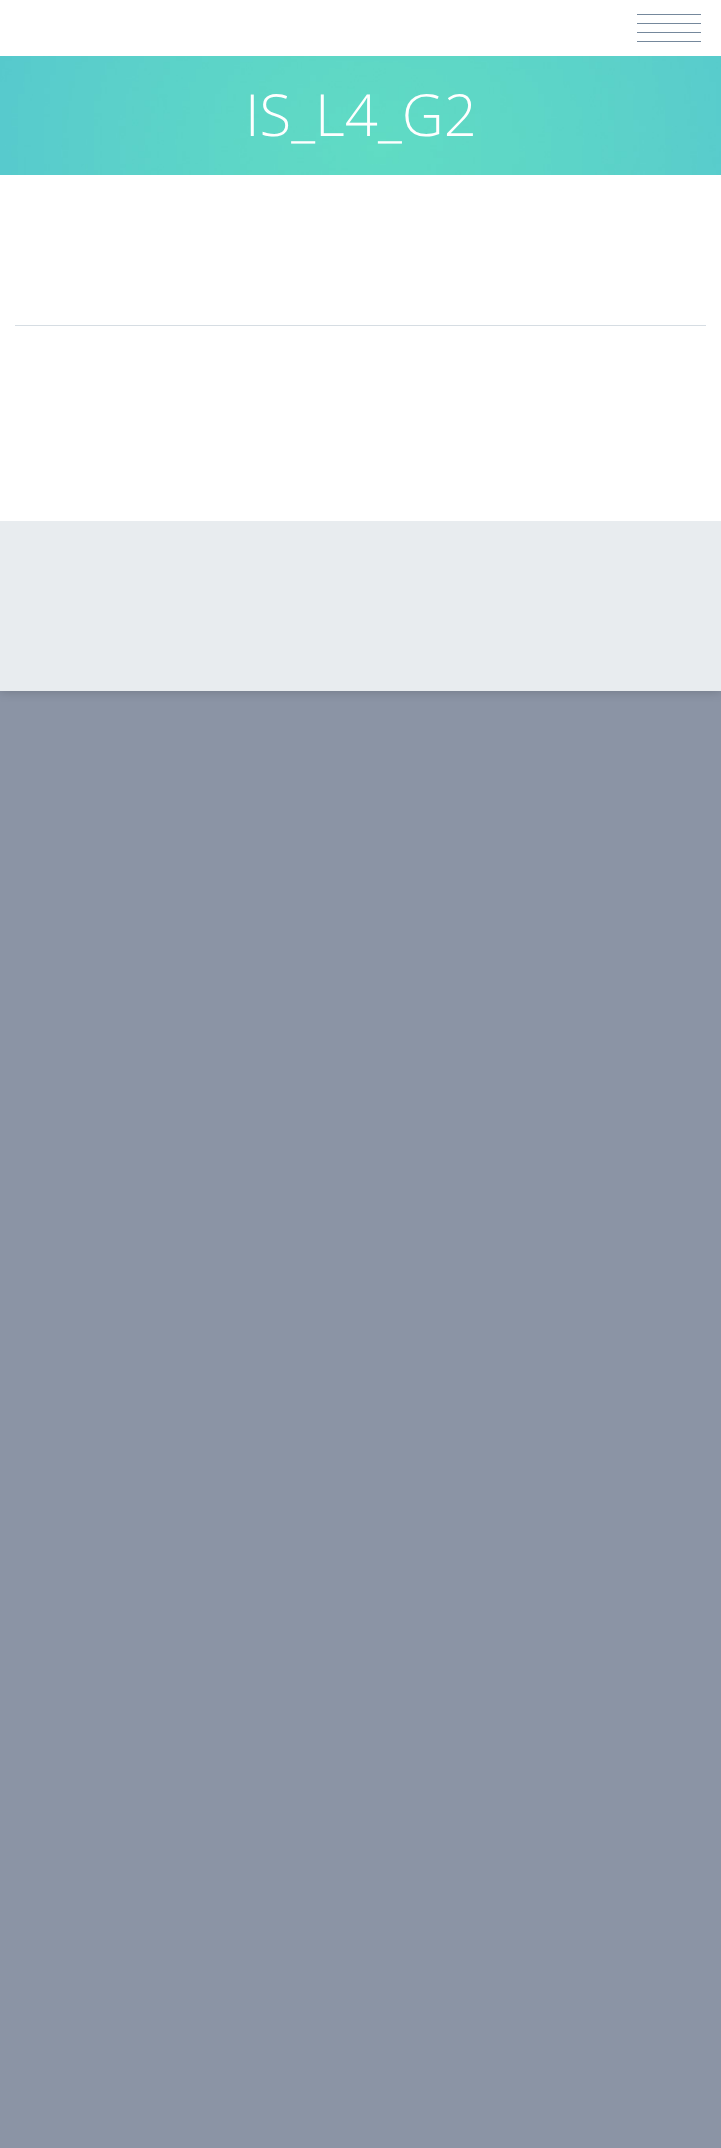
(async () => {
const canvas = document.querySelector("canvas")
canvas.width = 721
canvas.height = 2148
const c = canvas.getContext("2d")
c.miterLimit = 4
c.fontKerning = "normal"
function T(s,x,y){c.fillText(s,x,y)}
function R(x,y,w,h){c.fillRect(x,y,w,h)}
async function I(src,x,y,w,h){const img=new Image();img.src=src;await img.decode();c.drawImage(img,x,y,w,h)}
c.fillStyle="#8b94a5"
R(0,0,721,2148)
c.fillStyle="#00000033"
c.filter="blur(5.5px)"
c.beginPath()
c.rect(0,0,721,691)
c.fill()
c.filter="none"
c.fillStyle="#e8ecef"
R(0,521,721,170)
c.fillStyle="#fff"
R(0,0,721,56)
c.fillStyle="#75889c"
R(637,41,64,1)
R(637,32,64,1)
R(637,23,64,1)
R(637,14,64,1)
await I("1.png",0,56,721,119)
c.font="300 58px Open Sans"
c.fillStyle="#fff"
T("IS_L4_G2",245,136)
R(0,175,721,346)
c.fillStyle="#d6dde3"
R(15,325,691,1)
})()
